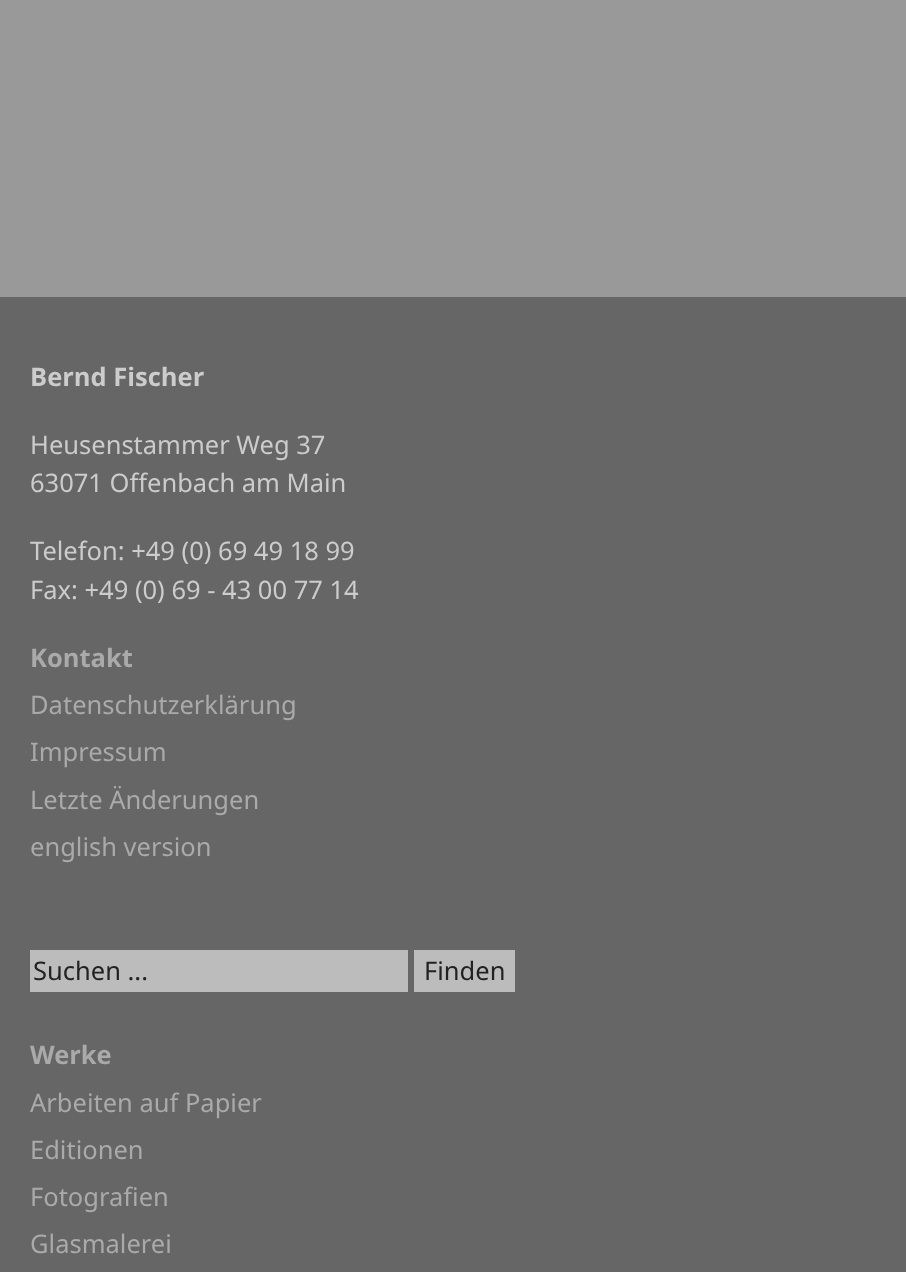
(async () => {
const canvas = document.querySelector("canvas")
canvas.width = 906
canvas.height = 1272
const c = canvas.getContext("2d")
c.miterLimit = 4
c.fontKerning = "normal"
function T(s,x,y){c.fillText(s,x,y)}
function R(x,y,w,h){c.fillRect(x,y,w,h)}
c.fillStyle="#999"
R(0,0,906,1272)
c.fillStyle="#666"
R(0,297,906,975)
c.font="bold 25.5px Noto Sans"
c.fillStyle="#ccc"
T("Bernd Fischer",30,386)
c.font="25.5px Noto Sans"
T("Heusenstammer Weg 37",30,454)
T("63071 Offenbach am Main",30,492)
T("Telefon: +49 (0) 69 49 18 99",30,560)
T("Fax: +49 (0) 69 - 43 00 77 14",30,599)
c.font="bold 25.5px Noto Sans"
c.fillStyle="#aaa"
T("Kontakt",30,667)
c.font="25.5px Noto Sans"
T("Datenschutzerklärung",30,714)
T("Impressum",30,761)
T("Letzte Änderungen",30,809)
T("english version",30,856)
c.fillStyle="#bcbcbc"
R(30,950,378,42)
c.fillStyle="#222"
T("Suchen ...",33,980)
c.fillStyle="#bcbcbc"
R(414,950,101,42)
c.fillStyle="#222"
T("Finden",424,980)
c.font="bold 25.5px Noto Sans"
c.fillStyle="#aaa"
T("Werke",30,1064)
c.font="25.5px Noto Sans"
T("Arbeiten auf Papier",30,1112)
T("Editionen",30,1159)
T("Fotografien",30,1206)
T("Glasmalerei",30,1253)
})()
